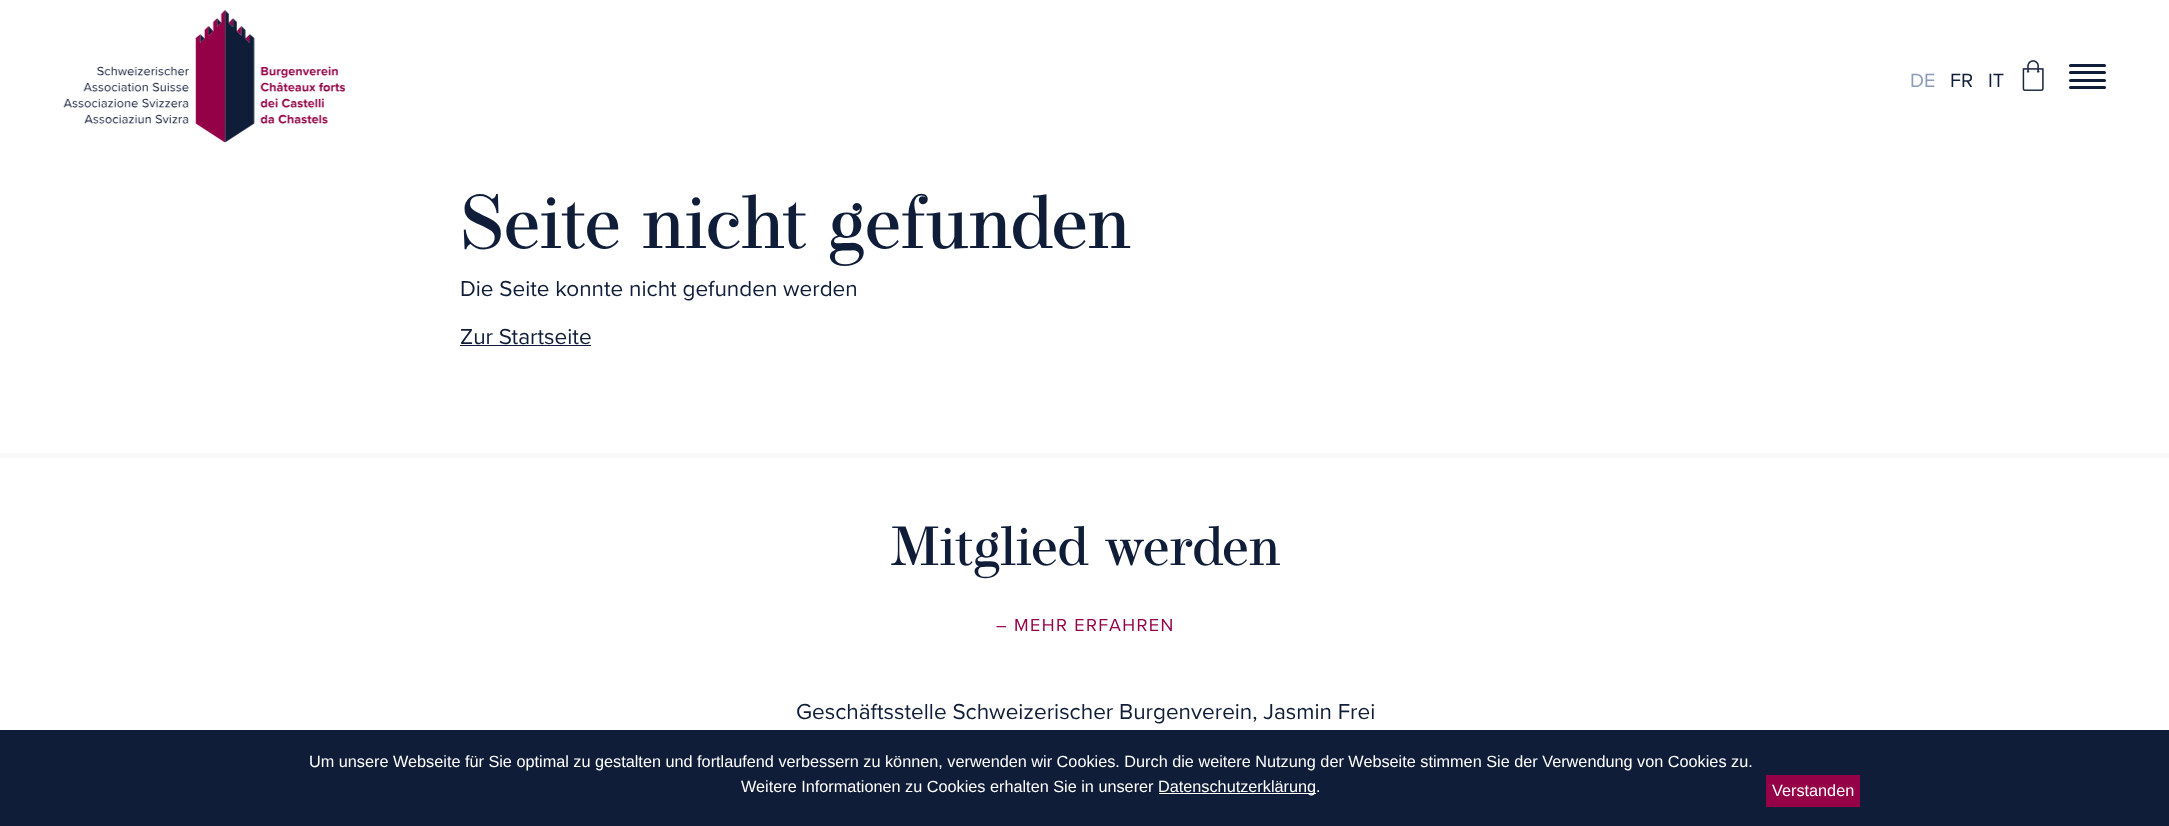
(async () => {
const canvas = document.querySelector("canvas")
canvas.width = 2169
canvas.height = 826
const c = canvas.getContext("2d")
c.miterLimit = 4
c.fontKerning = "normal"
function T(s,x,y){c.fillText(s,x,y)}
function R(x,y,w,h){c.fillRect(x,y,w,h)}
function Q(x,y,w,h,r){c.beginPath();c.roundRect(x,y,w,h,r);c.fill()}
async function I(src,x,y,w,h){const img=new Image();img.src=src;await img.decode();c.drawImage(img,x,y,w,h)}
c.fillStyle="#fff"
R(0,0,2169,826)
await I("1.png",63,10,282,133)
c.font="20px Proxima Nova"
c.fillStyle="#8d9bb9"
T("DE",1910,87)
c.fillStyle="#101d38"
T("FR",1950,87)
T("IT",1988,87)
await I("2.png",2022,60,22,31)
Q(2069,64,37,3,1.5)
Q(2069,71,37,3,1.5)
Q(2069,79,37,3,1.5)
Q(2069,86,37,3,1.5)
c.font="500 75px 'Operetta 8'"
T("Seite nicht gefunden",460,248)
c.font="22.5px Proxima Nova"
T("Die Seite konnte nicht gefunden werden",460,296)
T("Zur Startseite",460,344)
R(460,345,131,1)
c.fillStyle="#f9f9f9"
R(0,453,2169,5)
c.font="500 55px 'Operetta 8'"
c.fillStyle="#101d38"
T("Mitglied werden",890,565)
c.letterSpacing="1.4px"
c.font="18px Proxima Nova"
c.fillStyle="#940147"
T("– MEHR ERFAHREN",996,631)
c.letterSpacing="0px"
c.font="22.5px Proxima Nova"
c.fillStyle="#101d38"
T("Geschäftsstelle Schweizerischer Burgenverein, Jasmin Frei",796,719)
R(0,730,2169,96)
c.font="16.25px Liberation Sans"
c.fillStyle="#fff"
T("Um unsere Webseite für Sie optimal zu gestalten und fortlaufend verbessern zu können, verwenden wir Cookies. Durch die weitere Nutzung der Webseite stimmen Sie der Verwendung von Cookies zu.",309,767)
T("Weitere Informationen zu Cookies erhalten Sie in unserer",741,792)
R(1159,793,157,1)
T("Datenschutzerklärung.",1158,792)
c.fillStyle="#940147"
R(1766,775,94,32)
c.fillStyle="#fff"
T("Verstanden",1772,796)
})()
